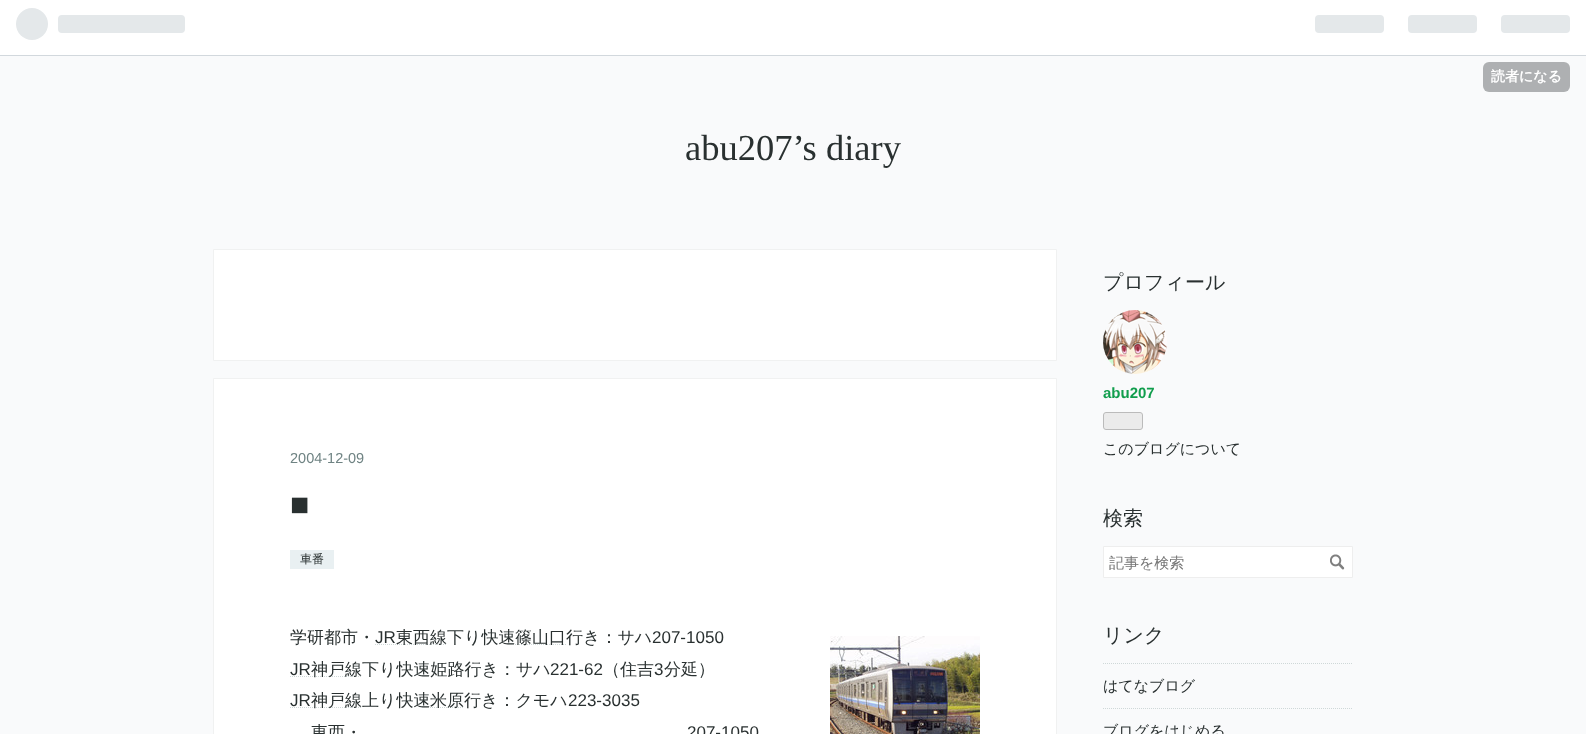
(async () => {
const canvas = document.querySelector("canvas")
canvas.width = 1586
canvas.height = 734
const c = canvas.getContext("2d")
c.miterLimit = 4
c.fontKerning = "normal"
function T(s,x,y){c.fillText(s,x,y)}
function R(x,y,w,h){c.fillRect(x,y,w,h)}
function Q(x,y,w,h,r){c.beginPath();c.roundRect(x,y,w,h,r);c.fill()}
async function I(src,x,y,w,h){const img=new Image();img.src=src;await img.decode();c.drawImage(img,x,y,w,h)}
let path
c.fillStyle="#f9fafb"
R(0,0,1586,734)
c.fillStyle="#fff"
R(0,0,1586,55)
c.fillStyle="#d2d8dd"
R(0,55,1586,1)
await I("1.png",16,8,169,32)
await I("2.png",1315,15,255,18)
c.fillStyle="#aeb0b2"
Q(1483,62,87,30,6)
c.font="bold 14px WenQuanYi Zen Hei"
c.fillStyle="#fff"
T("読者になる",1491,81)
c.font="36.5px Liberation Serif"
c.fillStyle="#293030"
T("abu207’s diary",685,160)
c.fillStyle="#fff"
c.beginPath()
c.rect(213.5,249.5,843,111)
c.fill()
c.strokeStyle="#f0f1f1"
c.stroke()
c.beginPath()
c.rect(213.5,378.5,843,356)
c.fill()
c.stroke()
c.font="14.5px Liberation Sans"
c.fillStyle="#6f8383"
T("2004-12-09",290,463)
c.font="32px Liberation Serif"
c.fillStyle="#293030"
T("■",290,515)
c.fillStyle="#e9f0f2"
R(290,550,44,19)
c.font="500 12px WenQuanYi Zen Hei"
c.fillStyle="#293030"
T("車番",300,563)
c.font="500 17px WenQuanYi Zen Hei"
T("学研都市・",290,643)
c.font="17px Liberation Sans"
T("JR",375,643)
path = new Path2D("M375 644.5h71.5")
c.strokeStyle="#cfd8d8"
c.setLineDash([1,1])
c.stroke(path)
c.font="500 17px WenQuanYi Zen Hei"
T("東西線下り快速",396,643)
path = new Path2D("M515 644.5h51")
c.stroke(path)
T("篠山口行き：サハ",515,643)
c.font="17px Liberation Sans"
T("207-1050",652,643)
T("JR",290,675)
path = new Path2D("M290 676.5h71.5")
c.stroke(path)
c.font="500 17px WenQuanYi Zen Hei"
T("神戸線下り快速姫路行き：サハ",311,675)
c.font="17px Liberation Sans"
T("221-62",550,675)
c.font="500 17px WenQuanYi Zen Hei"
T("（住吉",603,675)
c.font="17px Liberation Sans"
T("3",654,675)
c.font="500 17px WenQuanYi Zen Hei"
T("分延）",664,675)
c.font="17px Liberation Sans"
T("JR",290,706)
path = new Path2D("M290 707.5h71.5")
c.stroke(path)
c.font="500 17px WenQuanYi Zen Hei"
T("神戸線上り快速",311,706)
path = new Path2D("M430 707.5h34")
c.stroke(path)
T("米原行き：クモハ",430,706)
c.font="17px Liberation Sans"
T("223-3035",568,706)
c.font="500 17px WenQuanYi Zen Hei"
T("東西・",311,738)
c.font="17px Liberation Sans"
T("207-1050",687,738)
await I("3.png",830,636,150,98)
c.font="500 20px WenQuanYi Zen Hei"
T("プロフィール",1103,289)
await I("4.png",1103,310,64,64)
c.font="bold 15px Liberation Sans"
c.fillStyle="#119e4d"
T("abu207",1103,398)
c.fillStyle="#ebebeb"
c.beginPath()
c.roundRect(1103.5,412.5,39,17,2.5)
c.fill()
c.strokeStyle="#bbb"
c.setLineDash([])
c.stroke()
c.font="500 15px WenQuanYi Zen Hei"
c.fillStyle="#293030"
T("このブログについて",1103,454)
c.font="500 20px WenQuanYi Zen Hei"
T("検索",1103,525)
c.fillStyle="#fff"
c.beginPath()
c.rect(1103.5,546.5,249,31)
c.fill()
c.strokeStyle="#eee"
c.stroke()
c.font="500 15px WenQuanYi Zen Hei"
c.fillStyle="#757575"
T("記事を検索",1109,568)
await I("5.png",1330,554,15,16)
c.font="500 20px WenQuanYi Zen Hei"
c.fillStyle="#293030"
T("リンク",1103,642)
path = new Path2D("M1103 663.5h250")
c.strokeStyle="#cfd8d8"
c.setLineDash([1,1])
c.stroke(path)
c.font="500 15px WenQuanYi Zen Hei"
T("はてなブログ",1103,691)
path = new Path2D("M1103 708.5h250")
c.stroke(path)
T("ブログをはじめる",1103,736)
})()
